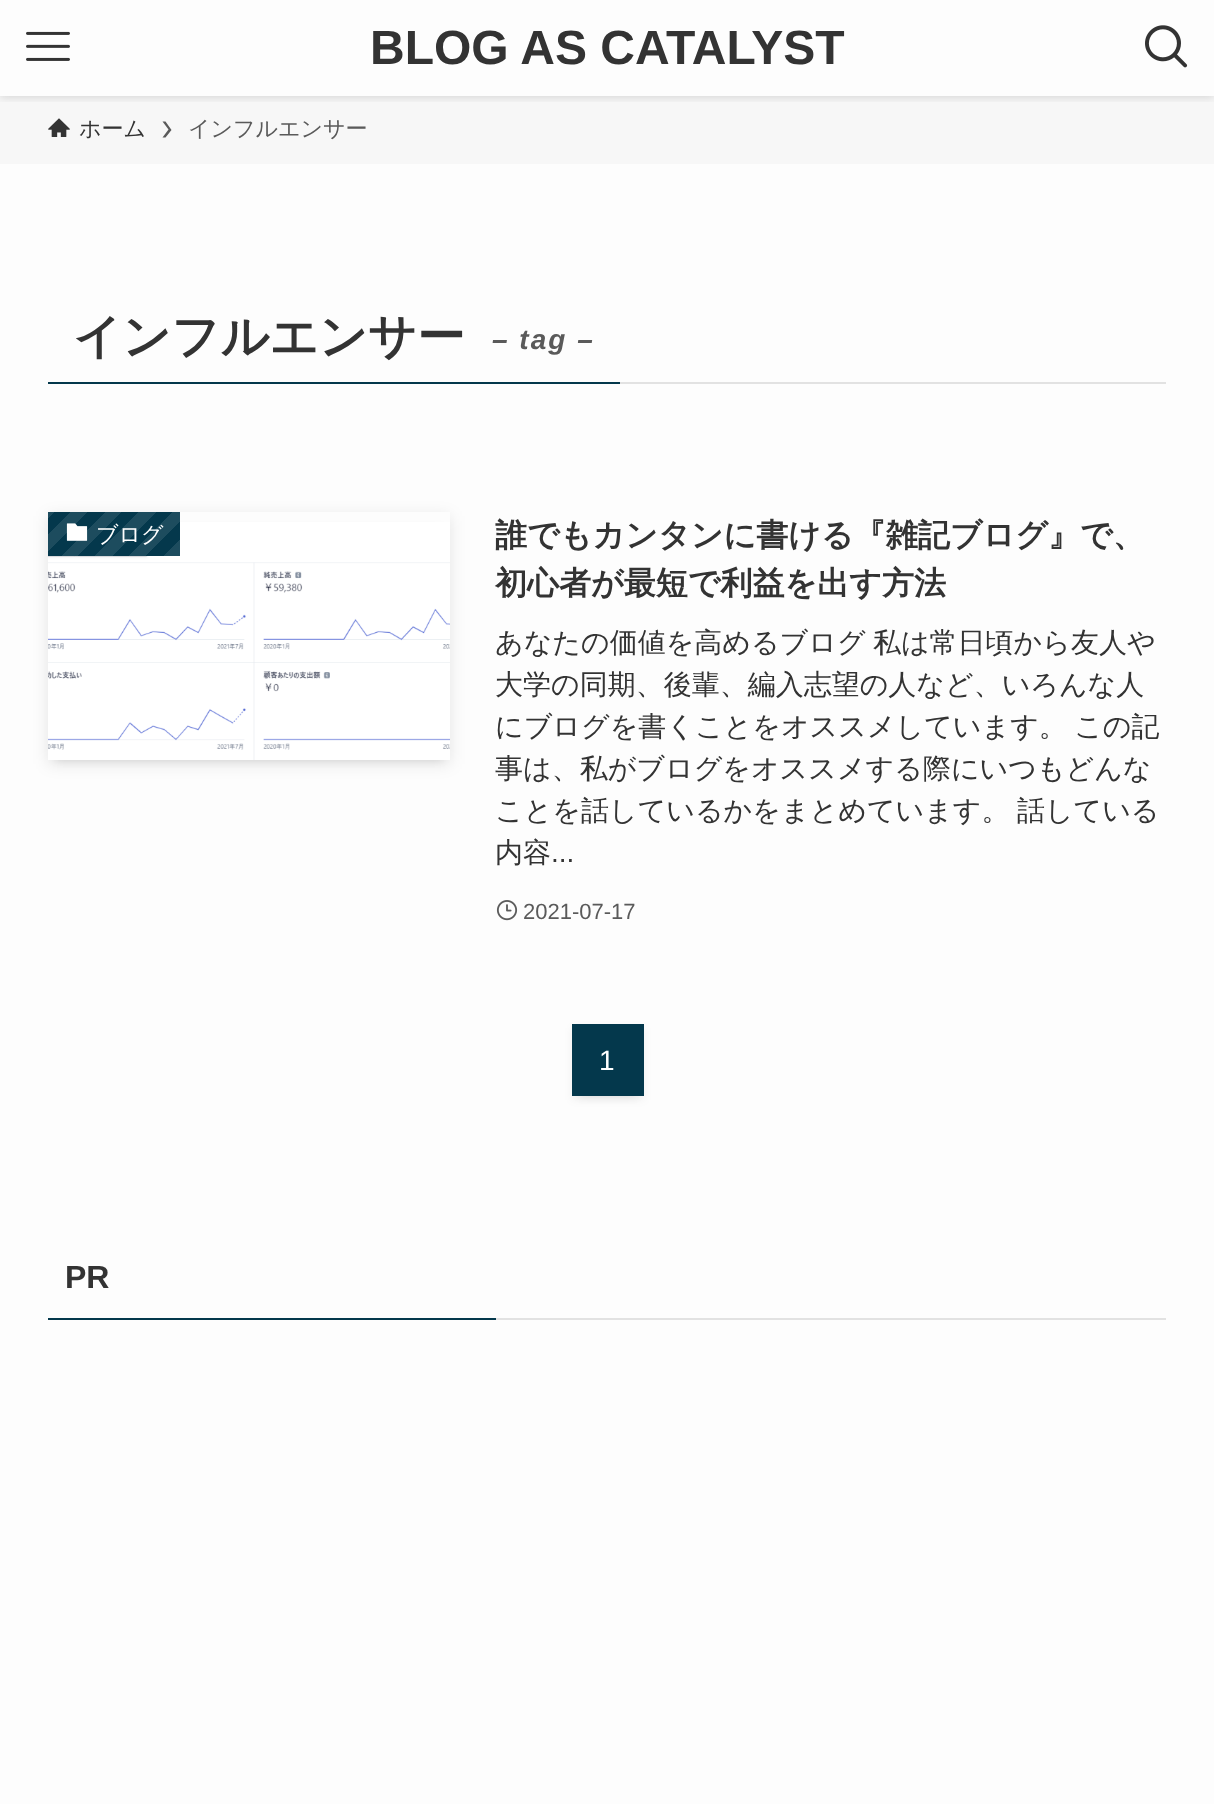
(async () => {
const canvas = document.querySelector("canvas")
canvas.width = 1214
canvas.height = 1804
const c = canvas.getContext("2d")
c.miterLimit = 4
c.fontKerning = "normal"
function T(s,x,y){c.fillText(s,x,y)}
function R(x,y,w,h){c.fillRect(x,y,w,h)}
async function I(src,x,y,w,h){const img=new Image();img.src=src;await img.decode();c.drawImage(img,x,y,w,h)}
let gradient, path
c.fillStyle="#fdfdfd"
R(0,0,1214,1804)
c.fillStyle="#f7f7f7"
R(0,96,1214,68)
c.save()
c.beginPath()
c.rect(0,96,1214,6)
c.clip()
c.fillStyle="#0000001f"
c.filter="blur(4px)"
c.beginPath()
c.rect(0,2,1214,96)
c.fill()
c.filter="none"
c.restore()
await I("1.png",26,31,44,30)
c.font="bold 48px Liberation Sans"
c.fillStyle="#333"
T("BLOG AS CATALYST",370,64)
await I("2.png",1145,25,43,43)
await I("3.png",48,118,22,19)
c.font="500 22px WenQuanYi Zen Hei"
T("ホーム",79,136)
c.fillStyle="#5a5a5a"
path = new Path2D("M165.5 121.5h-3l6 8l-6 8h3l6-7.5z")
c.fill(path)
T("インフルエンサー",188,136)
c.fillStyle="#e2e2e2"
R(620,382,546,2)
c.fillStyle="#04384c"
R(48,382,572,2)
c.font="bold 48px WenQuanYi Zen Hei"
c.fillStyle="#333"
T("インフルエンサー",73,353)
c.letterSpacing="2px"
c.font="italic bold 28px Liberation Sans"
c.fillStyle="#5a5a5a"
T("– tag –",492,349)
c.fillStyle="#0000001a"
c.filter="blur(4px)"
c.beginPath()
c.rect(56,528,386,232)
c.fill()
c.filter="none"
c.save()
path = new Path2D("M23 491h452v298h-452zm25 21h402v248h-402z")
c.clip(path,"evenodd")
c.filter="blur(8px)"
c.beginPath()
c.rect(48,516,402,248)
c.fill()
c.filter="none"
c.restore()
await I("4.png",48,522,402,238)
gradient = c.createLinearGradient(158,578,56,476)
gradient.addColorStop(0,"#1d4c5e")
gradient.addColorStop(.08,"#1d4c5e")
gradient.addColorStop(.08,"#04384c")
gradient.addColorStop(.17,"#04384c")
gradient.addColorStop(.17,"#1d4c5e")
gradient.addColorStop(.25,"#1d4c5e")
gradient.addColorStop(.25,"#04384c")
gradient.addColorStop(.33,"#04384c")
gradient.addColorStop(.33,"#1d4c5e")
gradient.addColorStop(.42,"#1d4c5e")
gradient.addColorStop(.42,"#04384c")
gradient.addColorStop(.5,"#04384c")
gradient.addColorStop(.5,"#1d4c5e")
gradient.addColorStop(.58,"#1d4c5e")
gradient.addColorStop(.58,"#04384c")
gradient.addColorStop(.67,"#04384c")
gradient.addColorStop(.67,"#1d4c5e")
gradient.addColorStop(.75,"#1d4c5e")
gradient.addColorStop(.75,"#04384c")
gradient.addColorStop(.83,"#04384c")
gradient.addColorStop(.83,"#1d4c5e")
gradient.addColorStop(.92,"#1d4c5e")
gradient.addColorStop(.92,"#04384c")
gradient.addColorStop(1,"#04384c")
c.fillStyle = gradient
R(48,512,132,44)
await I("5.png",66,523,22,18)
c.letterSpacing="0px"
c.font="500 22px WenQuanYi Zen Hei"
c.fillStyle="#fff"
T("ブログ",96,542)
c.font="bold 32px WenQuanYi Zen Hei"
c.fillStyle="#333"
T("誰でもカンタンに書ける『雑記ブログ』で、",495,546)
T("初心者が最短で利益を出す方法",495,594)
c.wordSpacing="-1px"
c.font="500 28px WenQuanYi Zen Hei"
T("あなたの価値を高めるブログ 私は常日頃から友人や",495,652)
c.wordSpacing="0px"
T("大学の同期、後輩、編入志望の人など、いろんな人",495,694)
c.wordSpacing="-1px"
T("にブログを書くことをオススメしています。 この記",495,736)
c.wordSpacing="0px"
T("事は、私がブログをオススメする際にいつもどんな",495,778)
c.wordSpacing="-1px"
T("ことを話しているかをまとめています。 話している",495,820)
c.wordSpacing="0px"
T("内容",495,862)
c.font="28px Liberation Sans"
T("...",551,862)
await I("6.png",496,900,22,21)
c.font="22px Liberation Sans"
c.fillStyle="#5a5a5a"
T("2021-07-17",523,919)
c.fillStyle="#0000001a"
c.filter="blur(4px)"
c.beginPath()
c.rect(580,1040,56,56)
c.fill()
c.filter="none"
c.fillStyle="#0000000d"
c.filter="blur(4px)"
c.beginPath()
c.rect(572,1028,72,72)
c.fill()
c.filter="none"
c.fillStyle="#04384c"
R(572,1024,72,72)
c.font="28px Liberation Sans"
c.fillStyle="#fff"
T("1",599,1070)
c.font="bold 32px Liberation Sans"
c.fillStyle="#333"
T("PR",65,1288)
c.fillStyle="#04384c"
R(48,1318,448,2)
c.fillStyle="#e2e2e2"
R(496,1318,670,2)
})()
